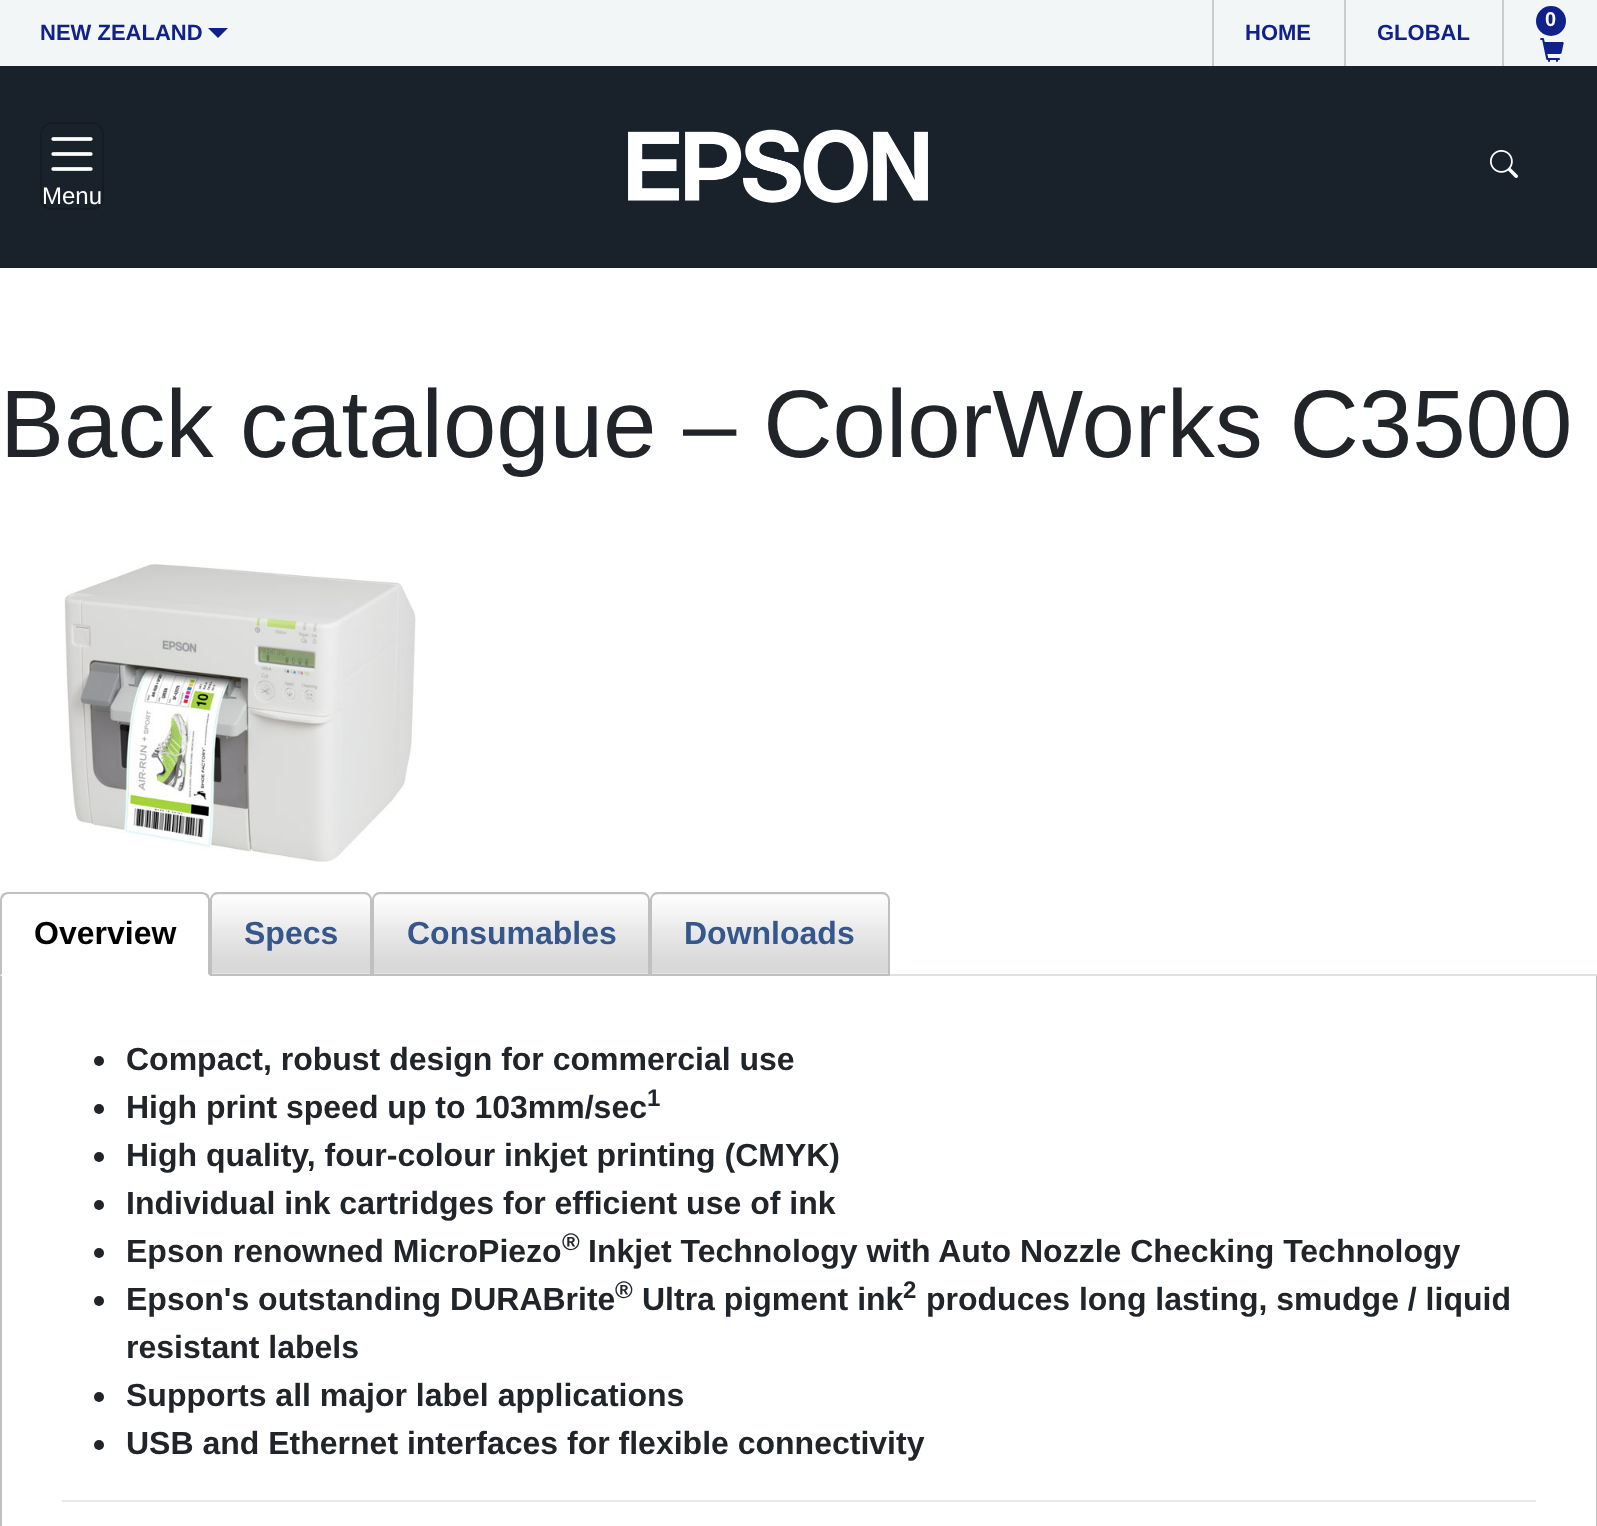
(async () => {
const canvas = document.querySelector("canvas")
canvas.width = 1597
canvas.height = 1526
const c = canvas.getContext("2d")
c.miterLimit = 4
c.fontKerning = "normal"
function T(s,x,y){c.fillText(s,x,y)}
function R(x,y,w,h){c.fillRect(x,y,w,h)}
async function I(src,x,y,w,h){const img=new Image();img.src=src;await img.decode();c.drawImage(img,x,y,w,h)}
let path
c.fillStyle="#fff"
R(0,0,1597,1526)
c.fillStyle="#f2f6f6"
R(0,0,1597,66)
c.font="bold 22px Liberation Sans"
c.fillStyle="#10218b"
T("NEW ZEALAND",40,40)
path = new Path2D("M208 28h20l-10 10z")
c.fill(path)
c.fillStyle="#ccc"
R(1502,0,2,66)
c.fillStyle="#10218b"
c.beginPath()
c.arc(1551,21,15,0,7)
c.fill()
c.font="bold 20px Liberation Sans"
c.fillStyle="#fff"
T("0",1545,26)
await I("1.png",1540,38,24,24)
c.fillStyle="#ccc"
R(1212,0,2,66)
c.font="bold 22px Liberation Sans"
c.fillStyle="#10218b"
T("HOME",1245,40)
c.fillStyle="#ccc"
R(1344,0,2,66)
c.fillStyle="#10218b"
T("GLOBAL",1377,40)
c.fillStyle="#19212b"
R(0,66,1597,202)
await I("2.png",628,129,300,74)
await I("3.png",1490,150,28,28)
c.beginPath()
c.roundRect(41,123,62,86,11)
c.strokeStyle="#151c25"
c.lineWidth=2
c.stroke()
await I("4.png",51,137,42,34)
c.font="24px Liberation Sans"
c.fillStyle="#fff"
T("Menu",42,204)
c.font="96px Liberation Sans"
c.fillStyle="#212529"
T("Back catalogue – ColorWorks C3500",0,457)
await I("5.png",64,564,352,298)
c.fillStyle="#dee2e6"
R(890,974,707,2)
c.fillStyle="#c0c0c0"
path = new Path2D("M8 892c-2 0-4 1-6 2l2 2c1-1 2-2 4-2h194c2 0 3 1 4 2l2-2c-2-1-4-2-6-2z")
c.fill(path)
path = new Path2D("M210 976v-76c0-2-1-4-2-6l-2 2l2 3v75z")
c.fill(path)
c.fillStyle="#fff"
path = new Path2D("M210 976l-2-2h-206l-2 2z")
c.fill(path)
c.fillStyle="#c0c0c0"
path = new Path2D("M0 976l2-2v-75l2-3l-2-2c-1 2-2 4-2 6z")
c.fill(path)
c.font="bold 32px Liberation Sans"
c.fillStyle="#000"
T("Overview",34,944)
await I("6.png",210,892,162,82)
c.beginPath()
c.roundRect(211,893,160,82,[7,7,0,0])
c.strokeStyle="#c0c0c0"
c.stroke()
c.fillStyle="#36578b"
T("Specs",244,944)
await I("7.png",372,892,278,82)
c.beginPath()
c.roundRect(373,893,276,82,[7,7,0,0])
c.stroke()
T("Consumables",407,944)
await I("8.png",650,892,240,82)
c.beginPath()
c.roundRect(651,893,238,82,[7,7,0,0])
c.stroke()
T("Downloads",684,944)
c.fillStyle="#c0c0c0"
R(1596,976,1,550)
R(0,976,2,550)
c.fillStyle="#212529"
c.beginPath()
c.arc(99,1061,5,0,7)
c.fill()
T("Compact, robust design for commercial use",126,1070)
c.beginPath()
c.arc(99,1109,5,0,7)
c.fill()
T("High print speed up to 103mm/sec",126,1118)
c.font="bold 24px Liberation Sans"
T("1",647,1106)
c.beginPath()
c.arc(99,1157,5,0,7)
c.fill()
c.font="bold 32px Liberation Sans"
T("High quality, four-colour inkjet printing (CMYK)",126,1166)
c.beginPath()
c.arc(99,1205,5,0,7)
c.fill()
T("Individual ink cartridges for efficient use of ink",126,1214)
c.beginPath()
c.arc(99,1253,5,0,7)
c.fill()
T("Epson renowned MicroPiezo",126,1262)
c.font="bold 24px Liberation Sans"
T("®",562,1250)
c.font="bold 32px Liberation Sans"
T("Inkjet Technology with Auto Nozzle Checking Technology",588,1262)
c.beginPath()
c.arc(99,1301,5,0,7)
c.fill()
T("Epson's outstanding DURABrite",126,1310)
c.font="bold 24px Liberation Sans"
T("®",615,1298)
c.font="bold 32px Liberation Sans"
T("Ultra pigment ink",642,1310)
c.font="bold 24px Liberation Sans"
T("2",903,1298)
c.font="bold 32px Liberation Sans"
T("produces long lasting, smudge / liquid",926,1310)
T("resistant labels",126,1358)
c.beginPath()
c.arc(99,1397,5,0,7)
c.fill()
T("Supports all major label applications",126,1406)
c.beginPath()
c.arc(99,1445,5,0,7)
c.fill()
T("USB and Ethernet interfaces for flexible connectivity",126,1454)
c.fillStyle="#e9e9e9"
R(62,1500,1474,2)
})()
